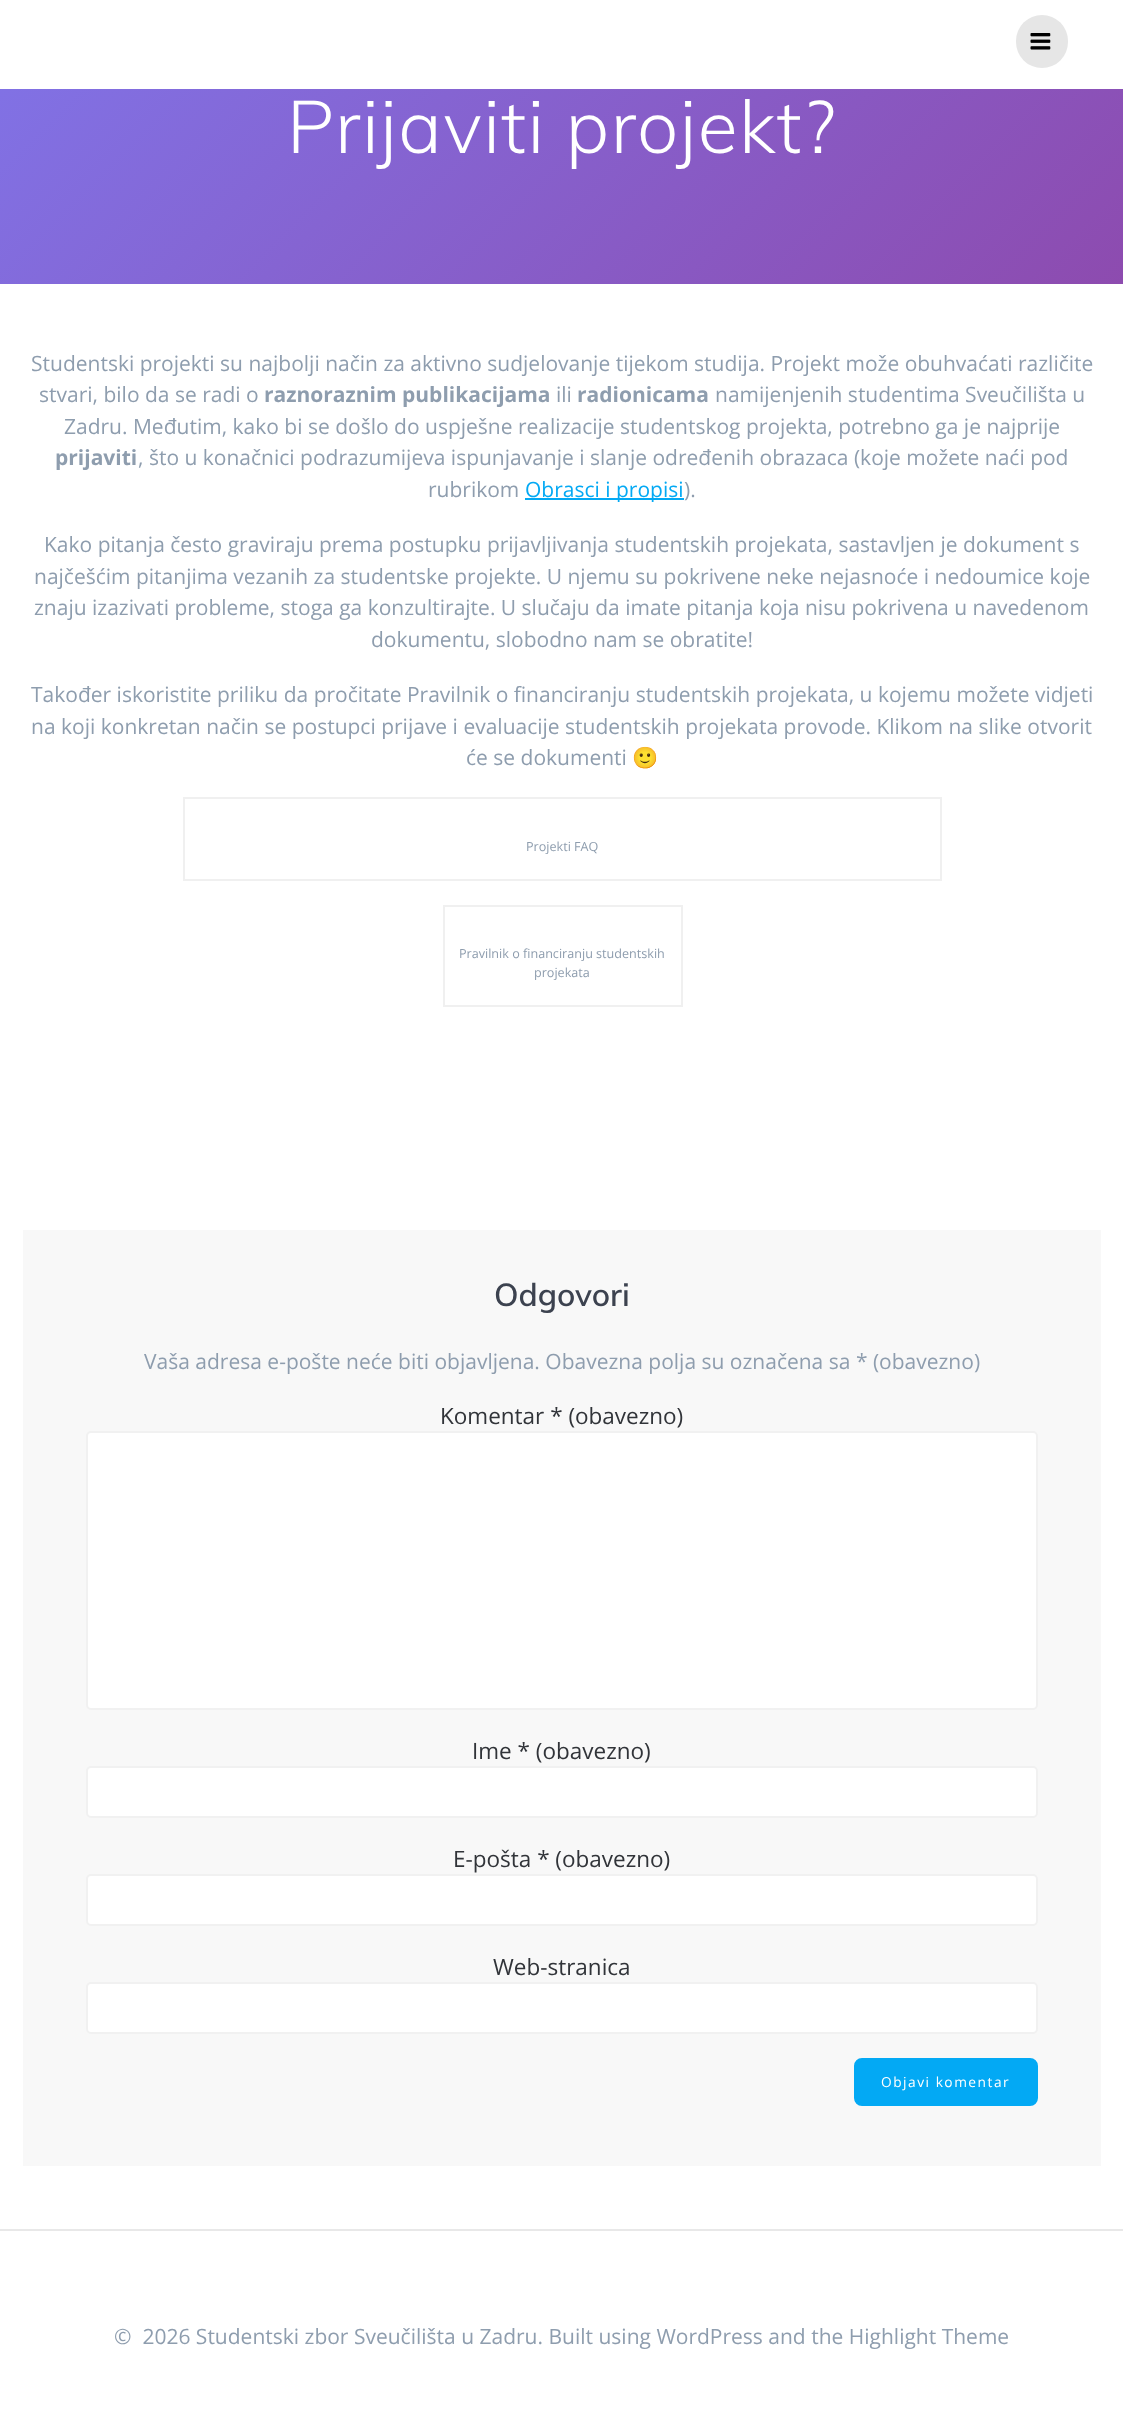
(async () => {
const canvas = document.querySelector("canvas")
canvas.width = 1123
canvas.height = 2431
const c = canvas.getContext("2d")
c.miterLimit = 4
c.fontKerning = "normal"
function T(s,x,y){c.fillText(s,x,y)}
function R(x,y,w,h){c.fillRect(x,y,w,h)}
function Q(x,y,w,h,r){c.beginPath();c.roundRect(x,y,w,h,r);c.fill()}
async function I(src,x,y,w,h){const img=new Image();img.src=src;await img.decode();c.drawImage(img,x,y,w,h)}
let gradient
c.fillStyle="#fff"
R(0,0,1123,2431)
c.fillStyle="#e6e6e6"
Q(1016,15,52,53,26)
await I("1.png",1030,33,21,17)
gradient = c.createLinearGradient(208,-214,915,492)
gradient.addColorStop(0,"#8074e8")
gradient.addColorStop(1,"#8d4baf")
c.fillStyle = gradient
R(0,89,1123,195)
c.letterSpacing="1.4px"
c.font="300 73.5px Muli"
c.fillStyle="#fff"
T("Prijaviti projekt?",287,153)
c.letterSpacing="0px"
c.font="21px Open Sans"
c.fillStyle="#8e9dae"
T("Studentski projekti su najbolji način za aktivno sudjelovanje tijekom studija. Projekt može obuhvaćati različite",31,371)
T("stvari, bilo da se radi o",39,402)
c.font="bold 21px Open Sans"
T("raznoraznim publikacijama",264,402)
c.font="21px Open Sans"
T("ili",556,402)
c.font="bold 21px Open Sans"
T("radionicama",577,402)
c.font="21px Open Sans"
T("namijenjenih studentima Sveučilišta u",715,402)
T("Zadru. Međutim, kako bi se došlo do uspješne realizacije studentskog projekta, potrebno ga je najprije",64,434)
c.font="bold 21px Open Sans"
T("prijaviti",55,465)
c.font="21px Open Sans"
T(", što u konačnici podrazumijeva ispunjavanje i slanje određenih obrazaca (koje možete naći pod",138,465)
T("rubrikom",428,497)
c.fillStyle="#03a9f4"
R(525,498,159,2)
T("Obrasci i propisi",525,497)
c.fillStyle="#8e9dae"
T(").",684,497)
T("Kako pitanja često graviraju prema postupku prijavljivanja studentskih projekata, sastavljen je dokument s",44,552)
T("najčešćim pitanjima vezanih za studentske projekte. U njemu su pokrivene neke nejasnoće i nedoumice koje",34,584)
T("znaju izazivati probleme, stoga ga konzultirajte. U slučaju da imate pitanja koja nisu pokrivena u navedenom",34,615)
T("dokumentu, slobodno nam se obratite!",371,647)
T("Također iskoristite priliku da pročitate Pravilnik o financiranju studentskih projekata, u kojemu možete vidjeti",31,702)
T("na koji konkretan način se postupci prijave i evaluacije studentskih projekata provode. Klikom na slike otvorit",31,734)
T("će se dokumenti",466,765)
c.font="21px Noto Color Emoji"
T("🙂",632,765)
c.strokeStyle="#f0f0f0"
c.lineWidth=2
c.strokeRect(184,798,757,82)
c.font="12.6px Open Sans"
T("Projekti FAQ",526,851)
c.strokeRect(444,906,238,100)
T("Pravilnik o financiranju studentskih",459,958)
T("projekata",534,977)
c.fillStyle="#f8f8f8"
R(23,1230,1078,936)
c.font="600 31.5px Muli"
c.fillStyle="#3c424f"
T("Odgovori",494,1306)
c.font="21px Open Sans"
c.fillStyle="#8e9dae"
T("Vaša adresa e-pošte neće biti objavljena. Obavezna polja su označena sa * (obavezno)",144,1369)
c.font="22.5px Open Sans"
c.fillStyle="#313439"
T("Komentar * (obavezno)",440,1424)
c.fillStyle="#fff"
c.beginPath()
c.roundRect(87,1432,950,277,4)
c.fill()
c.strokeStyle="#f1f1f1"
c.stroke()
c.fillStyle="#313439"
T("Ime * (obavezno)",472,1759)
c.fillStyle="#fff"
c.beginPath()
c.roundRect(87,1767,950,50,4)
c.fill()
c.stroke()
c.fillStyle="#313439"
T("E-pošta * (obavezno)",453,1867)
c.fillStyle="#fff"
c.beginPath()
c.roundRect(87,1875,950,50,4)
c.fill()
c.stroke()
c.fillStyle="#313439"
T("Web-stranica",493,1975)
c.fillStyle="#fff"
c.beginPath()
c.roundRect(87,1983,950,50,4)
c.fill()
c.stroke()
c.fillStyle="#03a9f4"
c.beginPath()
c.roundRect(855.5,2059.5,181,45,6.5)
c.fill()
c.strokeStyle="#03a9f4"
c.lineWidth=3
c.stroke()
c.letterSpacing="1.5px"
c.font="13.75px Open Sans"
c.fillStyle="#fff"
T("Objavi komentar",881,2087)
c.fillStyle="#e8e8e8"
R(0,2229,1123,2)
c.letterSpacing="0px"
c.font="21px Open Sans"
c.fillStyle="#8e9dae"
T("©  2026 Studentski zbor Sveučilišta u Zadru. Built using WordPress and the Highlight Theme",114,2344)
})()
